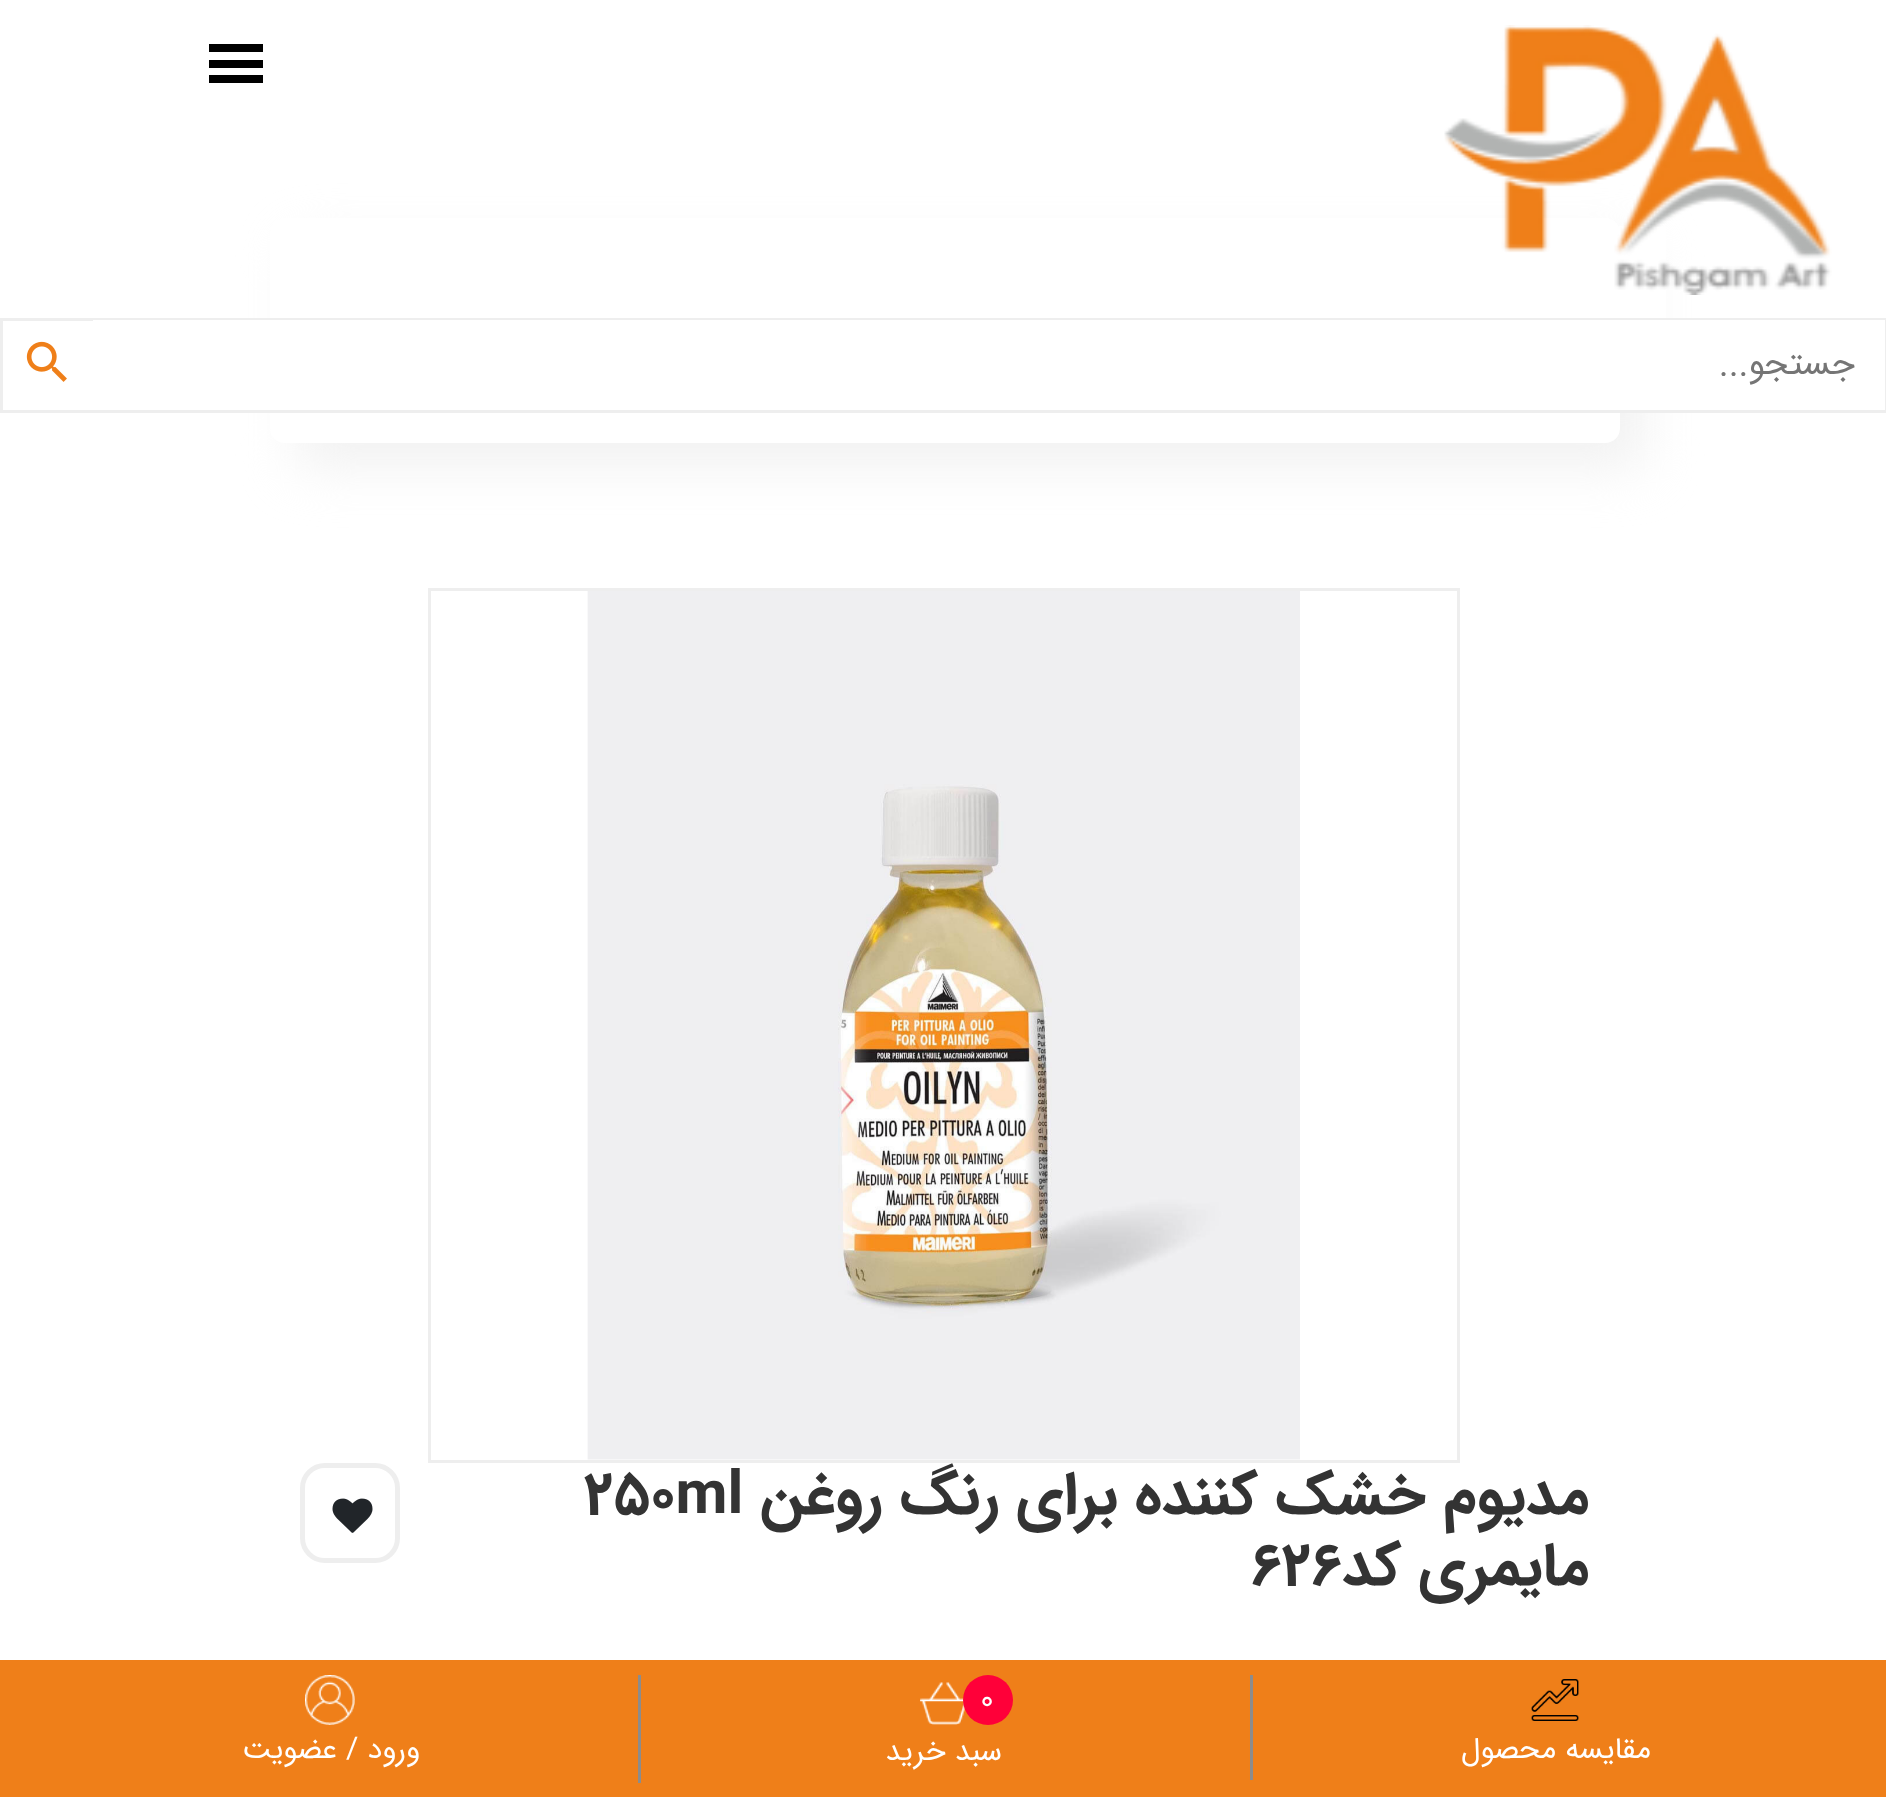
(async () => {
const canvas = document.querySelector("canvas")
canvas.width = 1886
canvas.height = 1797
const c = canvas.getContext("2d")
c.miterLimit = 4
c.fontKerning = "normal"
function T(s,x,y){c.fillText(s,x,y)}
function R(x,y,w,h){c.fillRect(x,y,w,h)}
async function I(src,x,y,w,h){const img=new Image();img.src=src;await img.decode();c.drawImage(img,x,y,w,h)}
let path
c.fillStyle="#fff"
R(0,0,1886,1797)
c.save()
path = new Path2D("M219 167h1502v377h-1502zm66 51h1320c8.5 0 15 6.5 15 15v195c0 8.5-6.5 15-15 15h-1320c-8.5 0-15-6.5-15-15v-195c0-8.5 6.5-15 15-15z")
c.clip(path,"evenodd")
c.fillStyle="#f2f2f2"
c.filter="blur(25px)"
c.beginPath()
c.roundRect(295,243,1350,225,15)
c.fill()
c.filter="none"
c.restore()
R(1619,226,47,92)
c.fillStyle="#000"
path = new Path2D("M209 83h54v-8h-54zm0-39v8h54v-8zm0 24h54v-8h-54z")
c.fill(path)
await I("1.png",1444,25,388,270)
c.strokeStyle="#eee"
c.lineWidth=3
c.strokeRect(1.5,319.5,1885,92)
c.fillStyle="#fff"
R(93,320,1792,90)
c.direction="rtl"
c.font="35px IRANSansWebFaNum"
c.fillStyle="#757575"
T("جستجو...",1855,374)
await I("2.png",26,341,41,41)
c.fillStyle="#ef7f19"
R(0,1660,1886,137)
c.fillStyle="#8c8c8c"
R(1250,1675,3,105)
await I("3.png",1531,1679,48,42)
c.font="30px IRANSansWebFaNum"
c.fillStyle="#fff"
T("مقایسه محصول",1651,1758)
c.fillStyle="#8c8c8c"
R(638,1675,3,108)
await I("4.png",920,1682,45,43)
c.fillStyle="#ff0039"
c.beginPath()
c.arc(988,1700,25,0,7)
c.fill()
c.direction="ltr"
c.font="32px IRANSansWebFaNum"
c.fillStyle="#fff"
T("0",980,1709)
c.direction="rtl"
c.font="30px IRANSansWebFaNum"
T("سبد خرید",1002,1760)
await I("5.png",305,1675,50,50)
T("ورود / عضویت",420,1758)
await I("6.png",587,591,713,869)
c.strokeRect(429.5,589.5,1029,872)
c.font="bold 60px IRANSansWebFaNum"
c.fillStyle="#333"
T("مدیوم خشک کننده برای رنگ روغن",1589,1513)
c.direction="ltr"
T("250ml",584,1513)
c.direction="rtl"
T("مایمری کد",1589,1584)
c.direction="ltr"
T("626",1251,1584)
c.beginPath()
c.roundRect(302.5,1465.5,95,95,22.5)
c.lineWidth=5
c.stroke()
await I("7.png",332,1498,41,35)
})()
